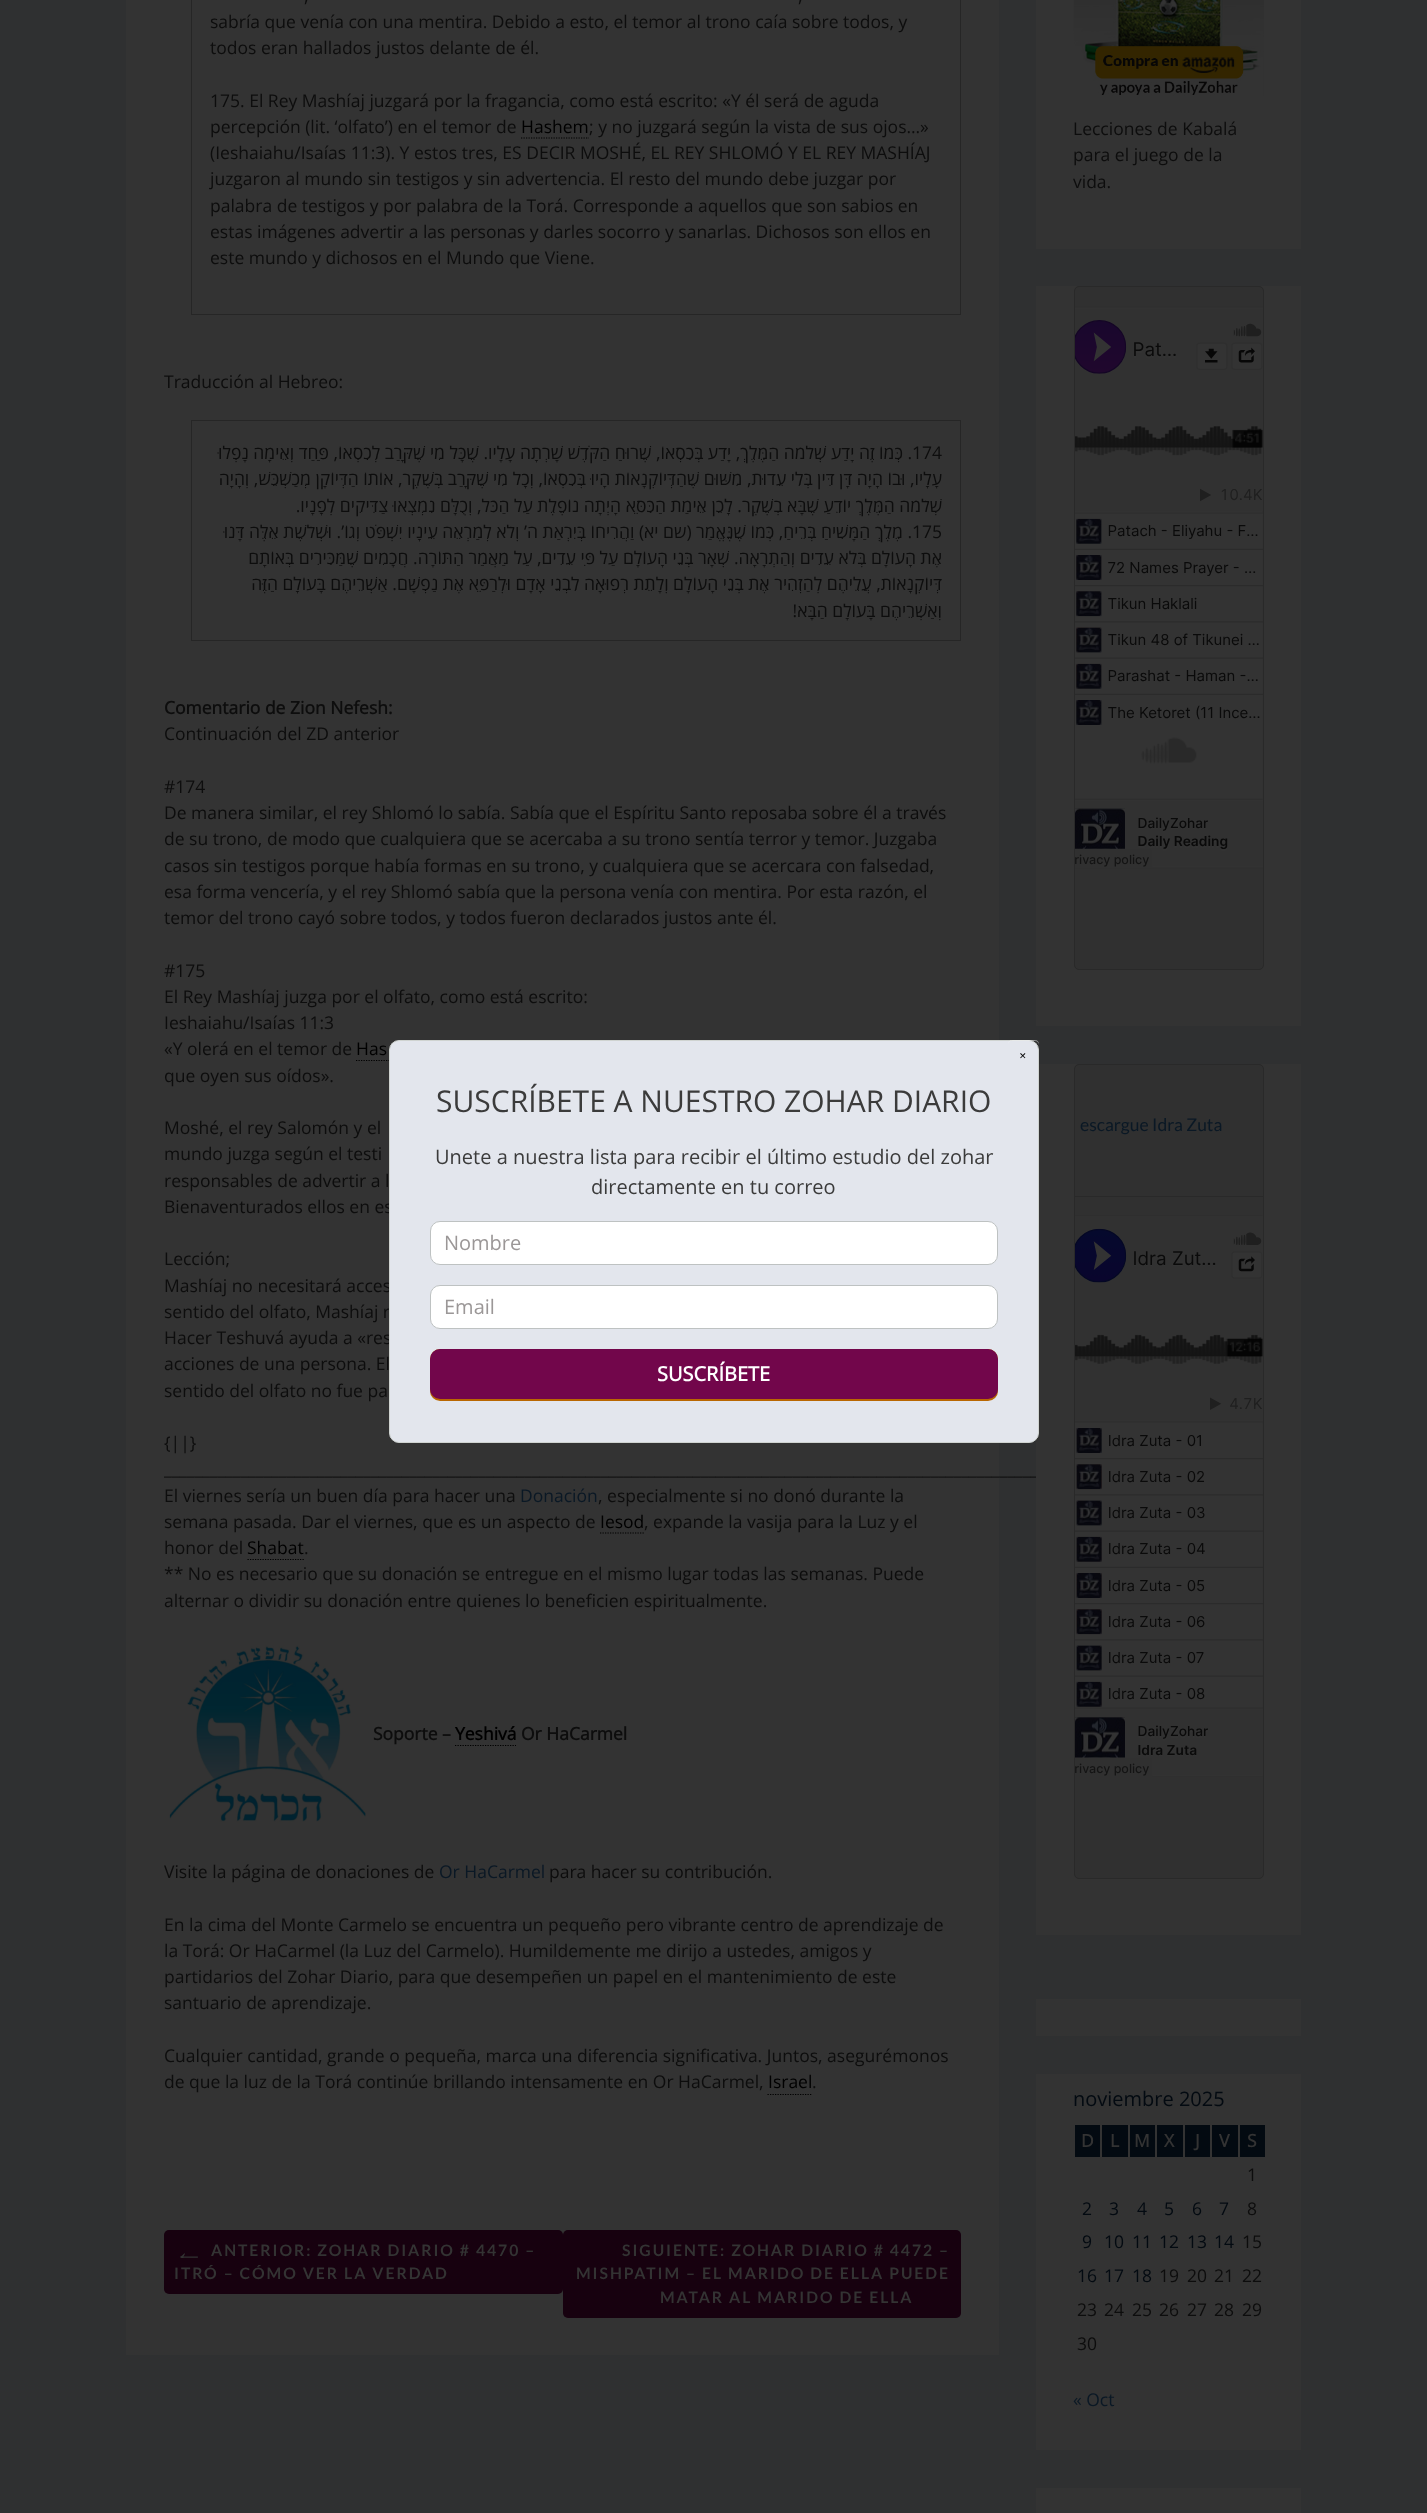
(async () => {
const canvas = document.querySelector("canvas")
canvas.width = 1427
canvas.height = 2513
const c = canvas.getContext("2d")
c.miterLimit = 4
c.fontKerning = "normal"
function T(s,x,y){c.fillText(s,x,y)}
function R(x,y,w,h){c.fillRect(x,y,w,h)}
function Q(x,y,w,h,r){c.beginPath();c.roundRect(x,y,w,h,r);c.fill()}
async function I(src,x,y,w,h){const img=new Image();img.src=src;await img.decode();c.drawImage(img,x,y,w,h)}
let path
c.fillStyle="#2f3031"
R(0,0,1427,2513)
c.fillStyle="#333"
R(126,0,873,2355)
c.strokeStyle="#262626"
c.strokeRect(191.5,-.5,769,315)
c.font="17.5px Open Sans"
c.fillStyle="#0d0d0d"
T(",",304,2)
T(",",798,2)
T("sabría que venía con una mentira. Debido a esto, el temor al trono caía sobre todos, y",210,28)
T("todos eran hallados justos delante de él.",210,54)
T("175. El Rey Mashíaj juzgará por la fragancia, como está escrito: «Y él será de aguda",210,107)
T("percepción (lit. ‘olfato’) en el temor de",210,133)
c.fillStyle="#000"
T("Hashem",521,133)
path = new Path2D("M521 138h68")
c.strokeStyle="#000"
c.lineWidth=1.2
c.setLineDash([1.25,1.25])
c.stroke(path)
c.fillStyle="#0d0d0d"
T("; y no juzgará según la vista de sus ojos…»",589,133)
T("(Ieshaiahu/Isaías 11:3). Y estos tres, ES DECIR MOSHÉ, EL REY SHLOMÓ Y EL REY MASHÍAJ",210,159)
T("juzgaron al mundo sin testigos y sin advertencia. El resto del mundo debe juzgar por",210,185)
T("palabra de testigos y por palabra de la Torá. Corresponde a aquellos que son sabios en",210,212)
T("estas imágenes advertir a las personas y darles socorro y sanarlas. Dichosos son ellos en",210,238)
T("este mundo y dichosos en el Mundo que Viene.",210,264)
T("Traducción al Hebreo:",164,388)
c.strokeStyle="#262626"
c.lineWidth=1
c.setLineDash([])
c.strokeRect(191.5,420.5,769,220)
c.direction="rtl"
T(". כְּמוֹ זֶה יָדַע שְׁלֹמֹה הַמֶּלֶךְ, יָדַע בְּכִסְאוֹ, שֶׁרוּחַ הַקֹּדֶשׁ שָׁרְתָה עָלָיו. שֶׁכָּל מִי שֶׁקָּרַב לְכִסְאוֹ, פַּחַד וְאֵימָה נָפְלוּ",912,459)
c.direction="ltr"
T("174",912,459)
c.direction="rtl"
T("עָלָיו, וּבוֹ הָיָה דָּן דִּין בְּלִי עֵדוּת, מִשּׁוּם שֶׁהַדְּיוֹקְנָאוֹת הָיוּ בְּכִסְאוֹ, וְכָל מִי שֶׁקָּרַב בְּשֶׁקֶר, אוֹתוֹ הַדְּיוֹקָן מְכַשְׁכֵּשׁ, וְהָיָה",942,485)
T("שְׁלֹמֹה הַמֶּלֶךְ יוֹדֵעַ שֶׁבָּא בְשֶׁקֶר. לָכֵן אֵימַת הַכִּסֵּא הָיְתָה נוֹפֶלֶת עַל הַכֹּל, וְכֻלָּם נִמְצְאוּ צַדִּיקִים לְפָנָיו.",942,512)
T(". מֶלֶךְ הַמָּשִׁיחַ בְּרֵיחַ, כְּמוֹ שֶׁנֶּאֱמַר (שם יא) וַהֲרִיחוֹ בְּיִרְאַת ה’ וְלֹא לְמַרְאֵה עֵינָיו יִשְׁפֹּט וְגוֹ’. וּשְׁלֹשֶׁת אֵלֶּה דָּנוּ",912,538)
c.direction="ltr"
T("175",912,538)
c.direction="rtl"
T("אֶת הָעוֹלָם בְּלֹא עֵדִים וְהַתְרָאָה. שְׁאָר בְּנֵי הָעוֹלָם עַל פִּי עֵדִים, עַל מַאֲמַר הַתּוֹרָה. חֲכָמִים שֶׁמַּכִּירִים בְּאוֹתָם",942,564)
T("דְּיוֹקְנָאוֹת, עֲלֵיהֶם לְהַזְהִיר אֶת בְּנֵי הָעוֹלָם וְלָתֵת רְפוּאָה לִבְנֵי אָדָם וּלְרַפֵּא אֶת נַפְשָׁם. אַשְׁרֵיהֶם בָּעוֹלָם הַזֶּה",942,590)
T("וְאַשְׁרֵיהֶם בָּעוֹלָם הַבָּא!",942,617)
c.direction="ltr"
c.font="bold 17.5px Open Sans"
T("Comentario de Zion Nefesh:",164,714)
c.font="17.5px Open Sans"
T("Continuación del ZD anterior",164,740)
T("#174",164,793)
T("De manera similar, el rey Shlomó lo sabía. Sabía que el Espíritu Santo reposaba sobre él a través",164,819)
T("de su trono, de modo que cualquiera que se acercaba a su trono sentía terror y temor. Juzgaba",164,845)
T("casos sin testigos porque había formas en su trono, y cualquiera que se acercara con falsedad,",164,872)
T("esa forma vencería, y el rey Shlomó sabía que la persona venía con mentira. Por esta razón, el",164,898)
T("temor del trono cayó sobre todos, y todos fueron declarados justos ante él.",164,924)
T("#175",164,977)
T("El Rey Mashíaj juzga por el olfato, como está escrito:",164,1003)
T("Ieshaiahu/Isaías 11:3",164,1029)
T("«Y olerá en el temor de",164,1055)
c.fillStyle="#000"
T("Has",356,1055)
path = new Path2D("M356 1060.5h68")
c.strokeStyle="#000"
c.lineWidth=1.2
c.setLineDash([1.25,1.25])
c.stroke(path)
c.fillStyle="#0d0d0d"
T("que oyen sus oídos».",164,1082)
T("Moshé, el rey Salomón y el",164,1134)
T("mundo juzga según el testi",164,1160)
T("responsables de advertir a l",164,1187)
T("Bienaventurados ellos en es",164,1213)
T("Lección;",164,1265)
T("Mashíaj no necesitará acces",164,1292)
T("sentido del olfato, Mashíaj r",164,1318)
T("Hacer Teshuvá ayuda a «res",164,1344)
T("acciones de una persona. El",164,1370)
T("sentido del olfato no fue pa",164,1397)
T("{||}",164,1449)
T("__________________________________________________________________________________________________________________",164,1475)
T("El viernes sería un buen día para hacer una",164,1502)
c.fillStyle="#0a1825"
T("Donación",520,1502)
c.fillStyle="#0d0d0d"
T(", especialmente si no donó durante la",598,1502)
T("semana pasada. Dar el viernes, que es un aspecto de",164,1528)
c.fillStyle="#000"
T("Iesod",600,1528)
path = new Path2D("M600 1533h44")
c.stroke(path)
c.fillStyle="#0d0d0d"
T(", expande la vasija para la Luz y el",644,1528)
T("honor del",164,1554)
c.fillStyle="#000"
T("Shabat",247,1554)
path = new Path2D("M247.5 1559.5h56.5")
c.stroke(path)
c.fillStyle="#0d0d0d"
T(".",304,1554)
T("** No es necesario que su donación se entregue en el mismo lugar todas las semanas. Puede",164,1580)
T("alternar o dividir su donación entre quienes lo beneficien espiritualmente.",164,1607)
await I("1.png",169,1645,197,178)
c.font="bold 17.5px Open Sans"
T("Soporte –",373,1740)
path = new Path2D("M455 1745.5h61")
c.stroke(path)
c.fillStyle="#000"
T("Yeshivá",455,1740)
c.fillStyle="#0d0d0d"
T("Or HaCarmel",521,1740)
c.font="17.5px Open Sans"
T("Visite la página de donaciones de",164,1878)
c.fillStyle="#0a1825"
T("Or HaCarmel",439,1878)
c.fillStyle="#0d0d0d"
T("para hacer su contribución.",549,1878)
T("En la cima del Monte Carmelo se encuentra un pequeño pero vibrante centro de aprendizaje de",164,1931)
T("la Torá: Or HaCarmel (la Luz del Carmelo). Humildemente me dirijo a ustedes, amigos y",164,1957)
T("partidarios del Zohar Diario, para que desempeñen un papel en el mantenimiento de este",164,1983)
T("santuario de aprendizaje.",164,2009)
T("Cualquier cantidad, grande o pequeña, marca una diferencia significativa. Juntos, asegurémonos",164,2062)
T("de que la luz de la Torá continúe brillando intensamente en Or HaCarmel,",164,2088)
c.fillStyle="#000"
T("Israel",768,2088)
path = new Path2D("M767.5 2094.5h45")
c.stroke(path)
c.fillStyle="#0d0d0d"
T(".",812,2088)
c.fillStyle="#17010f"
Q(164,2230,399,64,5)
c.save()
c.beginPath()
c.rect(174,2241,32,17)
c.clip()
c.letterSpacing="1.95px"
c.font="30px Liberation Sans"
c.fillStyle="#333"
T("←",174,2262)
c.restore()
c.letterSpacing="1.95px"
c.font="bold 15.75px Lato"
c.fillStyle="#333"
T("ANTERIOR: ZOHAR DIARIO # 4470 –",211,2256)
T("ITRÓ – CÓMO VER LA VERDAD",174,2279)
c.fillStyle="#17010f"
Q(563,2230,398,88,5)
c.fillStyle="#333"
T("SIGUIENTE: ZOHAR DIARIO # 4472 –",622,2256)
T("MISHPATIM – EL MARIDO DE ELLA PUEDE",576,2279)
T("MATAR AL MARIDO DE ELLA",660,2303)
R(1036,0,265,249)
await I("2.png",1073,0,191,96)
c.letterSpacing="0px"
c.font="17.5px Open Sans"
c.fillStyle="#0d0d0d"
T("Lecciones de Kabalá",1073,135)
T("para el juego de la",1073,161)
T("vida.",1073,188)
c.fillStyle="#333"
R(1036,286,265,740)
c.fillStyle="#303030"
c.beginPath()
c.roundRect(1074.5,286.5,189,683,4.5)
c.fill()
c.strokeStyle="#292929"
c.lineWidth=1
c.setLineDash([])
c.stroke()
await I("3.png",1075,306,188,563)
c.fillStyle="#333"
R(1036,1064,265,871)
c.fillStyle="#303030"
c.beginPath()
c.roundRect(1074.5,1064.5,189,814,4.5)
c.fill()
c.stroke()
c.font="17.5px Lato"
c.fillStyle="#0a1825"
T("escargue Idra Zuta",1080,1131)
c.fillStyle="#292929"
R(1075,1196,188,1)
await I("4.png",1075,1215,188,562)
c.fillStyle="#333"
R(1036,1999,265,37)
R(1036,2074,265,376)
c.font="20px Open Sans"
c.fillStyle="#030a11"
T("noviembre 2025",1073,2106)
R(1075,2125,25,32)
c.font="bold 17.5px Open Sans"
c.fillStyle="#333"
T("D",1081,2147)
c.fillStyle="#030a11"
R(1102,2125,26,32)
c.fillStyle="#333"
T("L",1110,2147)
c.fillStyle="#030a11"
R(1130,2125,25,32)
c.fillStyle="#333"
T("M",1134,2147)
c.fillStyle="#030a11"
R(1157,2125,26,32)
c.fillStyle="#333"
T("X",1164,2147)
c.fillStyle="#030a11"
R(1185,2125,25,32)
c.fillStyle="#333"
T("J",1195,2147)
c.fillStyle="#030a11"
R(1212,2125,26,32)
c.fillStyle="#333"
T("V",1219,2147)
c.fillStyle="#030a11"
R(1240,2125,25,32)
c.fillStyle="#333"
T("S",1247,2147)
c.font="17.5px Open Sans"
c.fillStyle="#0d0d0d"
T("1",1247,2181)
c.fillStyle="#030a11"
T("2",1082,2215)
T("3",1109,2215)
T("4",1137,2215)
T("5",1164,2215)
T("6",1192,2215)
T("7",1219,2215)
c.fillStyle="#0d0d0d"
T("8",1247,2215)
c.fillStyle="#030a11"
T("9",1082,2248)
T("10",1104,2248)
T("11",1132,2248)
T("12",1159,2248)
T("13",1187,2248)
T("14",1214,2248)
c.fillStyle="#0d0d0d"
T("15",1242,2248)
c.fillStyle="#030a11"
T("16",1077,2282)
T("17",1104,2282)
T("18",1132,2282)
c.fillStyle="#0d0d0d"
T("19",1159,2282)
T("20",1187,2282)
T("21",1214,2282)
T("22",1242,2282)
T("23",1077,2316)
T("24",1104,2316)
T("25",1132,2316)
T("26",1159,2316)
T("27",1187,2316)
T("28",1214,2316)
T("29",1242,2316)
T("30",1077,2350)
c.fillStyle="#0a1825"
T("« Oct",1073,2406)
c.fillStyle="#333"
R(1036,2488,265,25)
c.fillStyle="#e3e6ed"
c.beginPath()
c.roundRect(389.5,1040.5,649,402,9.5)
c.fill()
c.strokeStyle="#cfd3d0"
c.stroke()
c.fillStyle="#ffffff80"
path = new Path2D("M1011 1041h24c2 0 4 2 4 4c0-5.5-3.5-5-8-5h-15c-4.5 0-8-.5-8 5c0-2 1-4 3-4z")
c.fill(path)
c.font="9px DejaVu Sans"
c.fillStyle="#000"
T("✕",1019,1059)
c.font="30px Open Sans"
c.fillStyle="#3b3b3b"
T("SUSCRÍBETE A NUESTRO ZOHAR DIARIO",436,1112)
c.font="20px Open Sans"
T("Unete a nuestra lista para recibir el último estudio del zohar",435,1164)
T("directamente en tu correo",591,1194)
c.fillStyle="#fff"
c.beginPath()
c.roundRect(430.5,1221.5,567,43,9.5)
c.fill()
c.strokeStyle="#bec2c2"
c.stroke()
c.fillStyle="#9b9797"
T("Nombre",444,1250)
c.fillStyle="#fff"
c.beginPath()
c.roundRect(430.5,1285.5,567,43,9.5)
c.fill()
c.stroke()
c.fillStyle="#9b9797"
T("Email",444,1314)
c.fillStyle="#b96701"
Q(430,1349,568,52,10)
c.fillStyle="#72064b"
Q(430,1349,568,50,10)
c.font="bold 20px Open Sans"
c.fillStyle="#fff"
T("SUSCRÍBETE",657,1381)
})()
